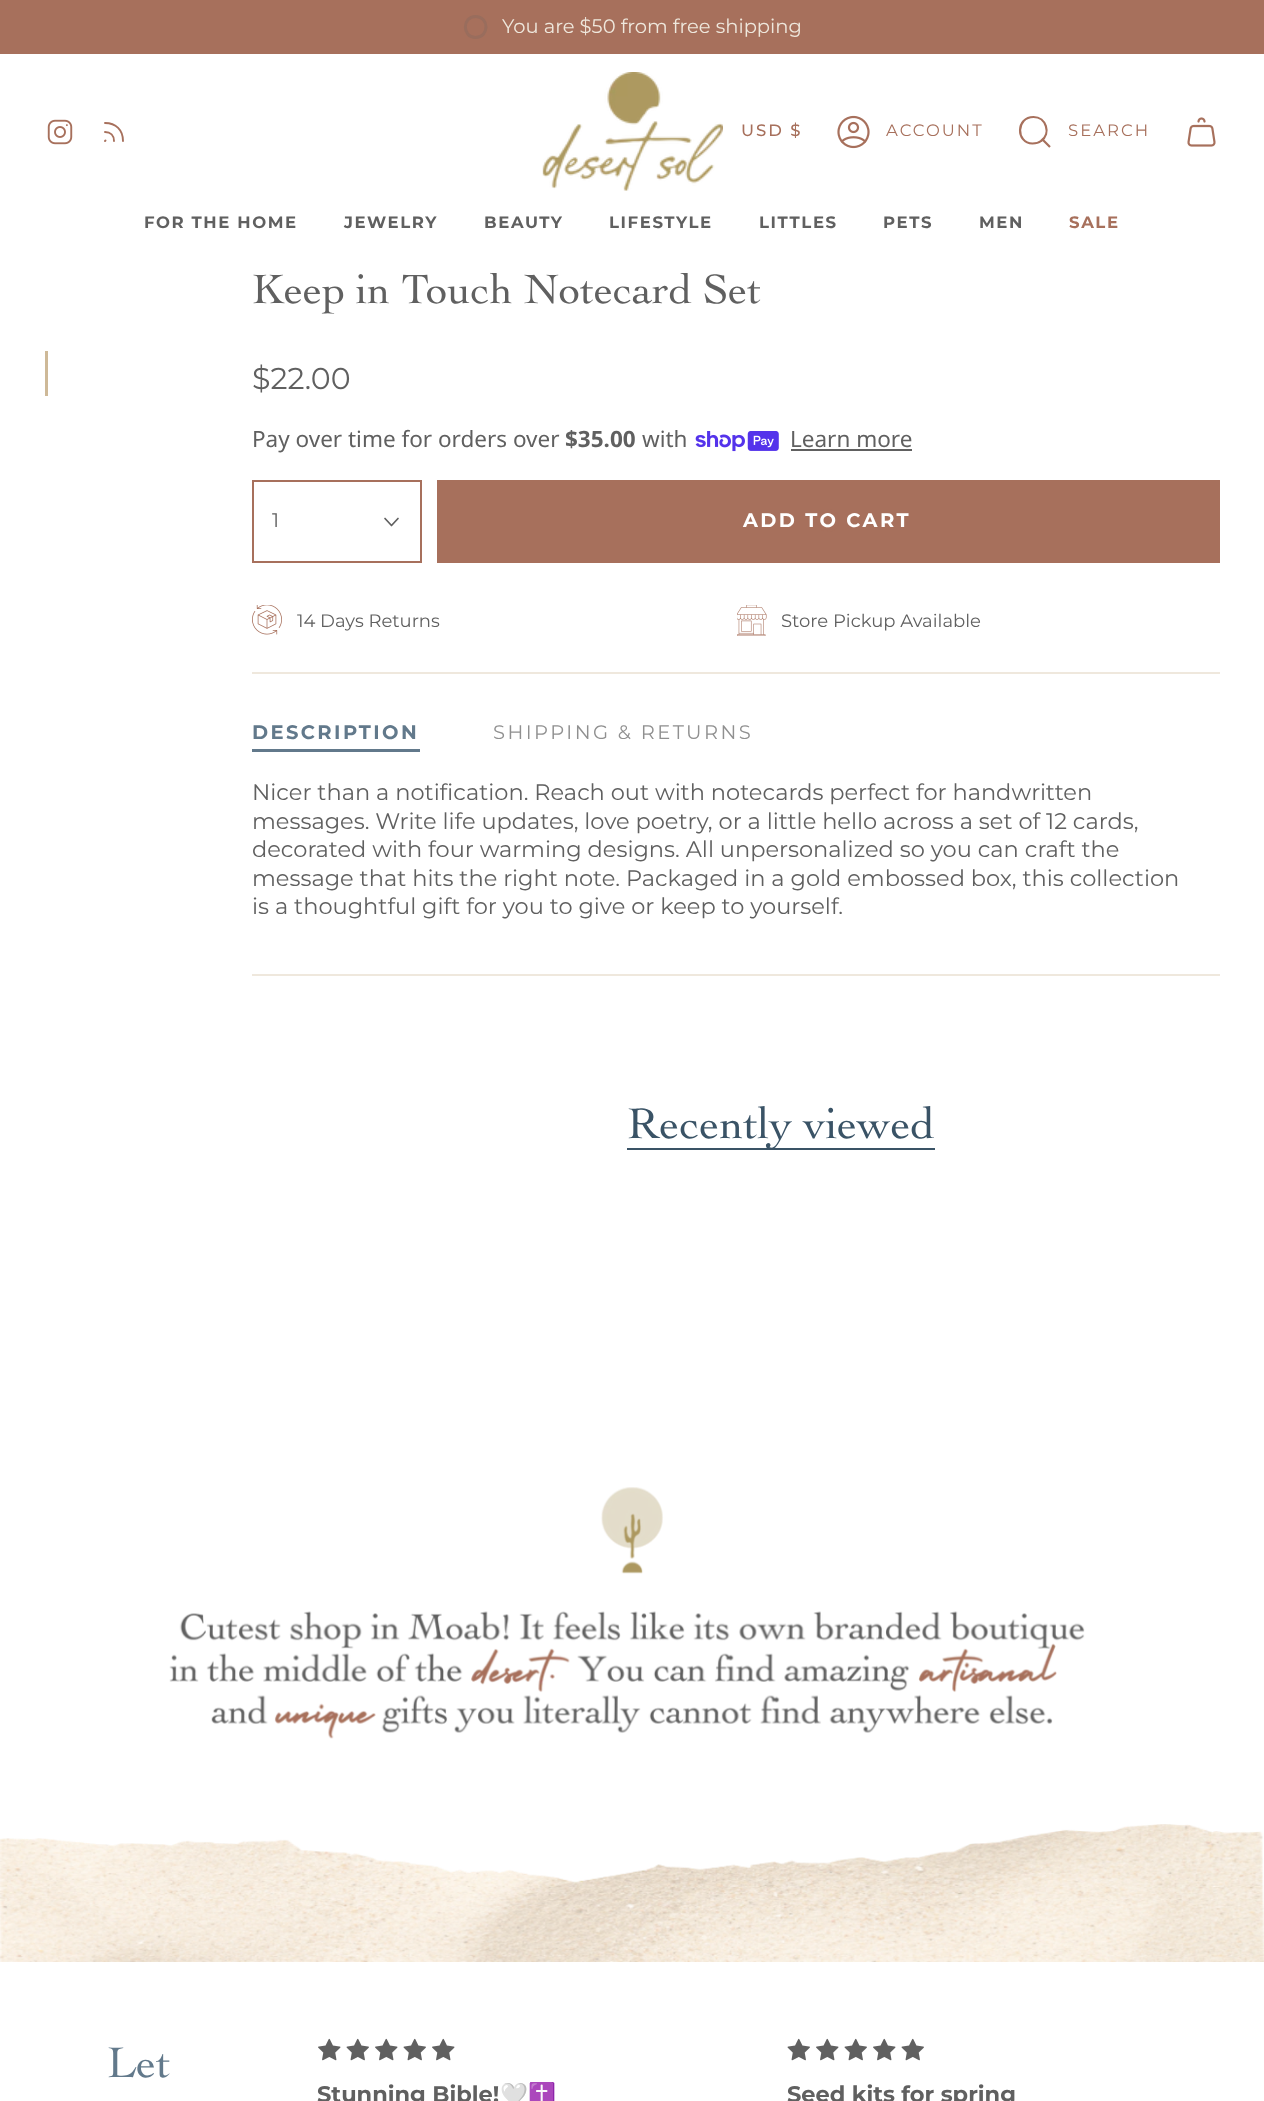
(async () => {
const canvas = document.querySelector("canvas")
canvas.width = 1264
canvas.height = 2101
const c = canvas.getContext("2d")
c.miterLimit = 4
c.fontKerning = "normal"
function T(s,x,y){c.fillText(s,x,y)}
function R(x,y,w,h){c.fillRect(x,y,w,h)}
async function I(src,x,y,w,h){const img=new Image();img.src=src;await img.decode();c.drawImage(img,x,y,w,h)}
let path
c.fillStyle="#fff"
R(0,0,1264,2101)
c.fillStyle="#a7705c"
R(0,0,1264,54)
path = new Path2D("M475.5 16.5c-13.5 0-13.5 21 0 21c14 0 14-21 0-21z")
c.strokeStyle="#996d5d"
c.lineWidth=3
c.stroke(path)
c.font="19.5px Montserrat"
c.fillStyle="#efe8dd"
T("You are $50 from free shipping",502,33)
await I("1.png",47,119,26,26)
path = new Path2D("M114 141c0-5.5-3.5-9-9-9m18 9c0-11-7-18-18-18m0 18l.5-.5")
c.strokeStyle="#a7705c"
c.lineWidth=1.9
c.lineCap="round"
c.lineJoin="round"
c.stroke(path)
await I("2.png",542,72,181,119)
c.letterSpacing="2px"
c.font="500 16.5px Montserrat"
c.fillStyle="#a7705c"
T("USD $",741,136)
await I("3.png",837,115,33,34)
c.font="16.5px Montserrat"
T("ACCOUNT",886,136)
path = new Path2D("M1033.5 117c12.5 0 18 16.5 7.5 24c-2.5 2-5.5 2.5-8.5 2.5c-17-.5-16.5-26.5 1-26.5zm9 22.5l7.5 7.5")
c.lineWidth=2.2
c.lineCap="butt"
c.lineJoin="miter"
c.stroke(path)
T("SEARCH",1068,136)
await I("4.png",1187,117,29,30)
c.letterSpacing="1.6px"
c.font="bold 16.5px Montserrat"
c.fillStyle="#606060"
T("FOR THE HOME",144,228)
T("JEWELRY",344,228)
T("BEAUTY",484,228)
T("LIFESTYLE",609,228)
T("LITTLES",759,228)
T("PETS",883,228)
T("MEN",979,228)
c.fillStyle="#a7705c"
T("SALE",1069,228)
c.letterSpacing="0px"
c.font="43.1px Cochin"
c.fillStyle="#606060"
T("Keep in Touch Notecard Set",252,303)
c.fillStyle="#fff"
R(491,272,197,1)
c.fillStyle="#ceb998"
R(45,351,3,45)
c.font="30px Montserrat"
c.fillStyle="#606060"
T("$22.00",252,389)
c.font="22.5px Noto Sans"
T("Pay over time for orders over",252,447)
c.font="bold 22.5px Noto Sans"
T("$35.00",565,447)
c.font="22.5px Noto Sans"
T("with",642,447)
await I("5.png",695,431,84,21)
T("Learn more",790,447)
R(791,449,121,2)
c.lineWidth=2
c.strokeRect(253,481,168,81)
c.font="19.5px Montserrat"
T("1",272,527)
path = new Path2D("M385 518.5l6.5 7l6.5-7")
c.strokeStyle="#606060"
c.lineWidth=1.7
c.lineCap="round"
c.lineJoin="round"
c.stroke(path)
c.fillStyle="#a7705c"
R(437,480,783,83)
c.letterSpacing="2.4px"
c.font="bold 19.5px Montserrat"
c.fillStyle="#fff"
T("ADD TO CART",743,527)
c.beginPath()
c.arc(828,520.5,10.5,0,7)
c.strokeStyle="#a7705c"
c.lineWidth=1.5
c.stroke()
await I("6.png",252,605,30,30)
c.letterSpacing="0px"
c.font="18px Montserrat"
c.fillStyle="#606060"
T("14 Days Returns",297,627)
await I("7.png",737,605,30,31)
T("Store Pickup Available",781,627)
c.fillStyle="#efe8dd"
R(252,672,968,2)
c.letterSpacing="2.4px"
c.font="bold 19.5px Montserrat"
c.fillStyle="#62798b"
T("DESCRIPTION",252,739)
R(252,749,168,3)
c.font="19.5px Montserrat"
c.fillStyle="#909090"
T("SHIPPING & RETURNS",493,739)
c.letterSpacing="0px"
c.font="22.5px Montserrat"
c.fillStyle="#606060"
T("Nicer than a notification. Reach out with notecards perfect for handwritten",252,800)
T("messages. Write life updates, love poetry, or a little hello across a set of 12 cards,",252,829)
T("decorated with four warming designs. All unpersonalized so you can craft the",252,857)
T("message that hits the right note. Packaged in a gold embossed box, this collection",252,886)
T("is a thoughtful gift for you to give or keep to yourself.",252,914)
c.fillStyle="#efe8dd"
R(252,974,968,2)
c.fillStyle="#3a5366"
R(627,1148,308,2)
c.font="45px Cochin"
T("Recently viewed",627,1138)
await I("8.png",0,1824,1264,138)
await I("9.png",169,1487,916,252)
c.fillStyle="#62798b"
T("Let",107,2077)
await I("10.png",318,2038,23,23)
await I("11.png",346,2038,23,23)
await I("10.png",375,2038,23,23)
await I("11.png",403,2038,23,23)
await I("10.png",432,2038,23,23)
c.font="bold 22.5px Montserrat"
c.fillStyle="#606060"
T("Stunning Bible!",317,2102)
c.font="bold 22.5px Noto Color Emoji"
T("🤍✝️",500,2102)
await I("11.png",787,2038,23,23)
await I("10.png",816,2038,23,23)
await I("11.png",844,2038,23,23)
await I("10.png",873,2038,23,23)
await I("11.png",901,2038,23,23)
c.font="bold 22.5px Montserrat"
T("Seed kits for spring",787,2102)
})()
